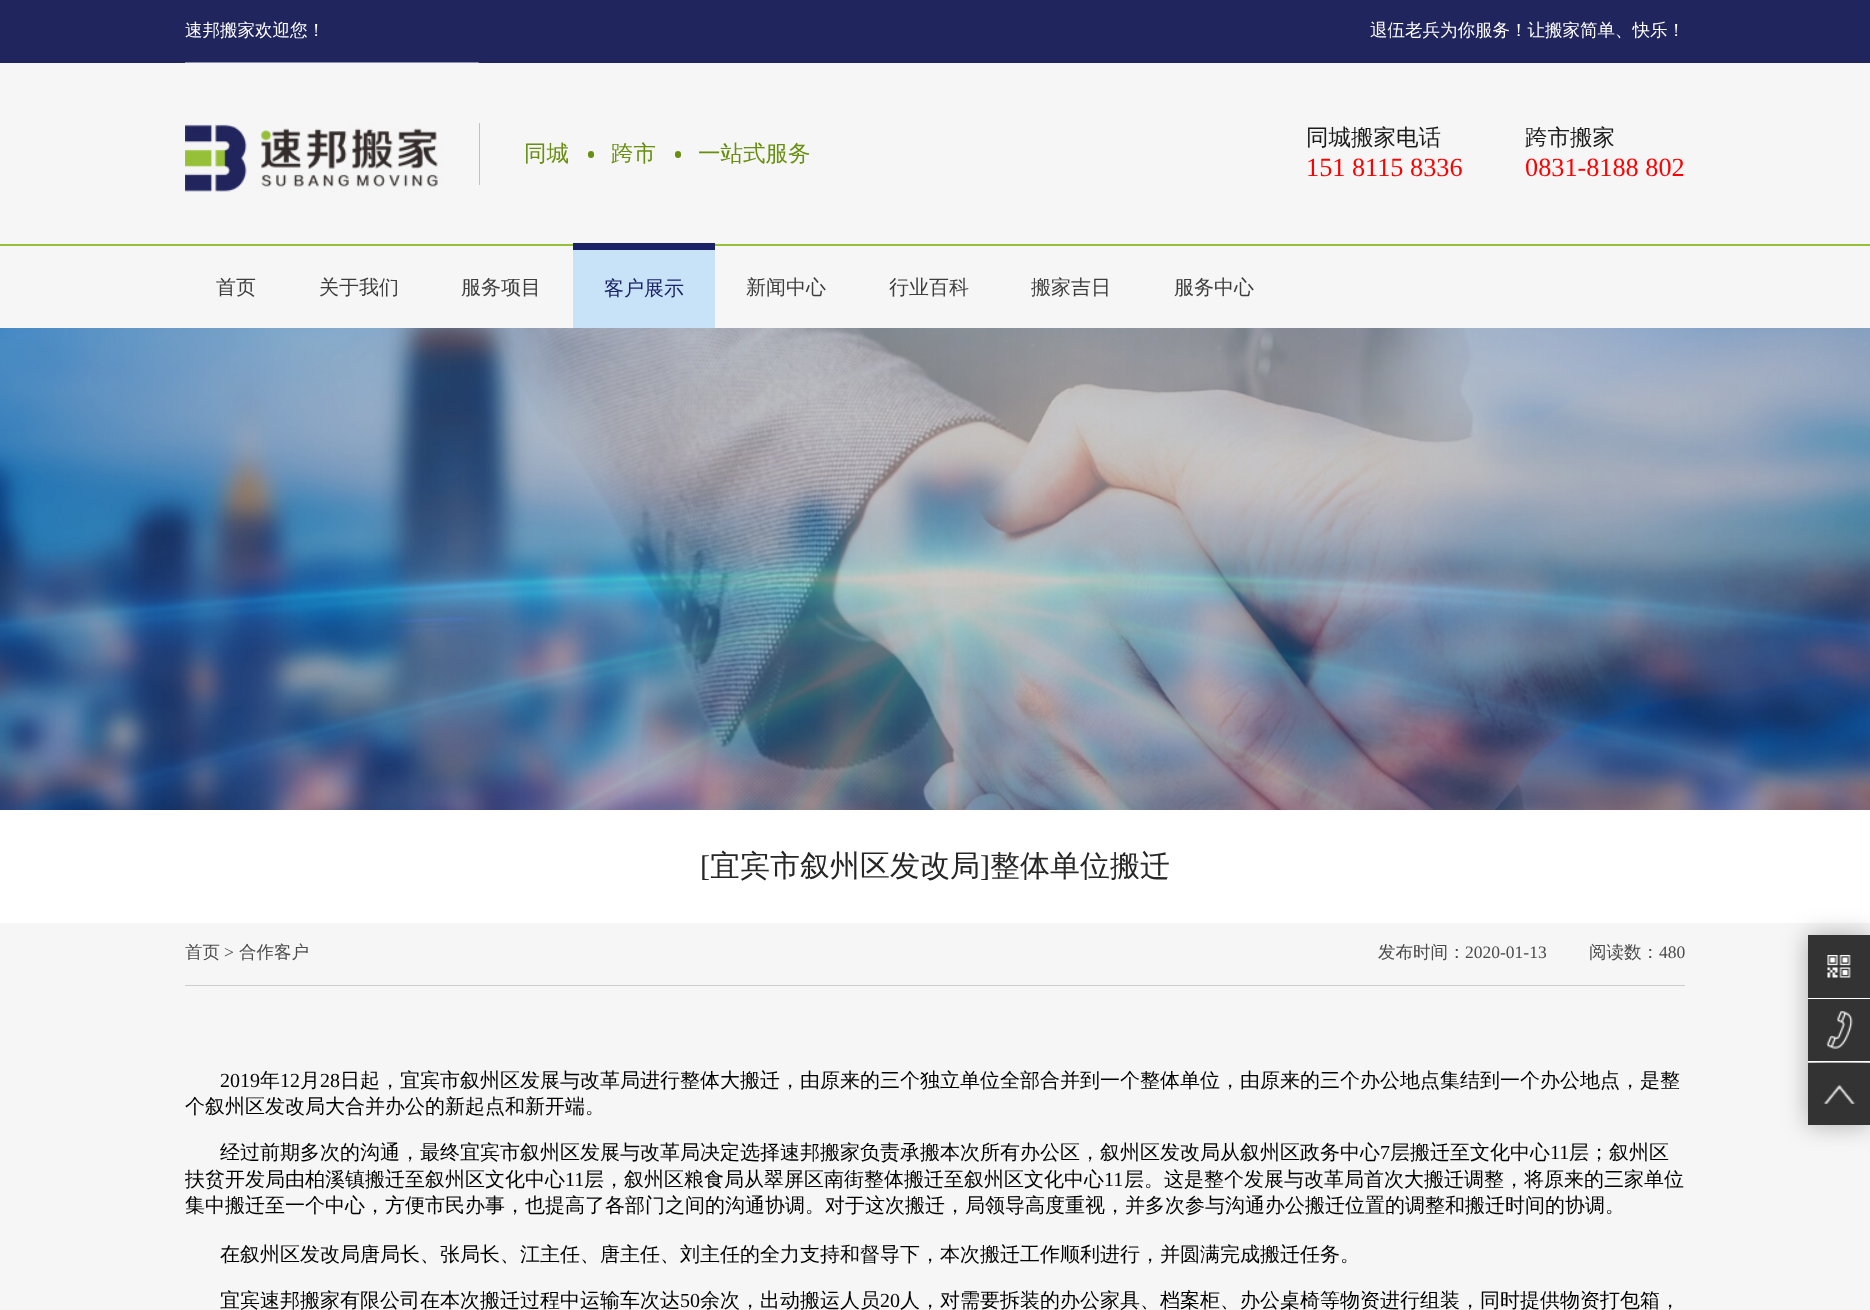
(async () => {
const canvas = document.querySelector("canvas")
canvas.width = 1870
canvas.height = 1310
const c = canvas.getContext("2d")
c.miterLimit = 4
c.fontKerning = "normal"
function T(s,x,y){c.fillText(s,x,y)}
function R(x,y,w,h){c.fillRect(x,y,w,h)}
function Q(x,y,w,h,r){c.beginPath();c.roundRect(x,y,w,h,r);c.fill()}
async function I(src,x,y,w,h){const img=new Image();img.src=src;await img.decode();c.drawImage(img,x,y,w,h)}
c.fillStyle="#21255d"
R(0,0,1870,1310)
c.font="500 17.5px WenQuanYi Zen Hei"
c.fillStyle="#fff"
T("速邦搬家欢迎您！",185,36)
T("退伍老兵为你服务！让搬家简单、快乐！",1370,36)
c.fillStyle="#f6f6f6"
R(0,63,1870,181)
c.fillStyle="#96c037"
R(0,244,1870,2)
await I("1.png",185,62,294,130)
c.fillStyle="#c2c1c0"
R(479,123,1,62)
c.font="500 22.5px WenQuanYi Zen Hei"
c.fillStyle="#688f10"
T("同城",524,161)
Q(588,151,6,7,3)
T("跨市",611,161)
Q(675,151,6,7,3)
T("一站式服务",698,161)
c.fillStyle="#1b1b1b"
T("同城搬家电话",1306,145)
c.font="26.25px Liberation Serif"
c.fillStyle="#f00"
T("151 8115 8336",1306,176)
c.font="500 22.5px WenQuanYi Zen Hei"
c.fillStyle="#1b1b1b"
T("跨市搬家",1525,145)
c.font="26.25px Liberation Serif"
c.fillStyle="#f00"
T("0831-8188 802",1525,176)
c.fillStyle="#f6f6f6"
R(0,246,1870,82)
c.font="500 20px WenQuanYi Zen Hei"
c.fillStyle="#3d3d3d"
T("首页",216,294)
T("关于我们",319,294)
T("服务项目",461,294)
c.fillStyle="#c8e2f7"
R(573,250,142,78)
c.fillStyle="#1b2167"
R(573,243,142,7)
T("客户展示",604,295)
c.fillStyle="#3d3d3d"
T("新闻中心",746,294)
T("行业百科",889,294)
T("搬家吉日",1031,294)
T("服务中心",1174,294)
await I("2.png",0,328,1870,482)
c.fillStyle="#f6f6f6"
R(0,923,1870,387)
c.fillStyle="#fff"
R(0,810,1870,113)
c.font="30px Liberation Serif"
c.fillStyle="#262626"
T("[",700,876)
c.font="500 30px WenQuanYi Zen Hei"
T("宜宾市叙州区发改局",710,876)
c.font="30px Liberation Serif"
T("]",980,876)
c.font="500 30px WenQuanYi Zen Hei"
T("整体单位搬迁",990,876)
c.fillStyle="#cecccc"
R(185,985,1500,1)
c.font="500 17.5px WenQuanYi Zen Hei"
c.fillStyle="#4b4b4b"
T("首页",185,958)
c.font="17.5px Liberation Serif"
T(">",224,958)
c.font="500 17.5px WenQuanYi Zen Hei"
T("合作客户",239,958)
T("发布时间：",1378,958)
c.font="17.5px Liberation Serif"
T("2020-01-13",1465,958)
c.font="500 17.5px WenQuanYi Zen Hei"
T("阅读数：",1589,958)
c.font="17.5px Liberation Serif"
T("480",1659,958)
c.font="20px Liberation Serif"
c.fillStyle="#000"
T("2019",220,1087)
c.font="500 20px WenQuanYi Zen Hei"
T("年",260,1087)
c.font="20px Liberation Serif"
T("12",280,1087)
c.font="500 20px WenQuanYi Zen Hei"
T("月",300,1087)
c.font="20px Liberation Serif"
T("28",320,1087)
c.font="500 20px WenQuanYi Zen Hei"
T("日起，宜宾市叙州区发展与改革局进行整体大搬迁，由原来的三个独立单位全部合并到一个整体单位，由原来的三个办公地点集结到一个办公地点，是整",340,1087)
T("个叙州区发改局大合并办公的新起点和新开端。",185,1113)
T("经过前期多次的沟通，最终宜宾市叙州区发展与改革局决定选择速邦搬家负责承搬本次所有办公区，叙州区发改局从叙州区政务中心",220,1159)
c.font="20px Liberation Serif"
T("7",1380,1159)
c.font="500 20px WenQuanYi Zen Hei"
T("层搬迁至文化中心",1390,1159)
c.font="20px Liberation Serif"
T("11",1550,1159)
c.font="500 20px WenQuanYi Zen Hei"
T("层；叙州区",1569,1159)
T("扶贫开发局由柏溪镇搬迁至叙州区文化中心",185,1186)
c.font="20px Liberation Serif"
T("11",565,1186)
c.font="500 20px WenQuanYi Zen Hei"
T("层，叙州区粮食局从翠屏区南街整体搬迁至叙州区文化中心",584,1186)
c.font="20px Liberation Serif"
T("11",1104,1186)
c.font="500 20px WenQuanYi Zen Hei"
T("层。这是整个发展与改革局首次大搬迁调整，将原来的三家单位",1124,1186)
T("集中搬迁至一个中心，方便市民办事，也提高了各部门之间的沟通协调。对于这次搬迁，局领导高度重视，并多次参与沟通办公搬迁位置的调整和搬迁时间的协调。",185,1212)
T("在叙州区发改局唐局长、张局长、江主任、唐主任、刘主任的全力支持和督导下，本次搬迁工作顺利进行，并圆满完成搬迁任务。",220,1261)
T("宜宾速邦搬家有限公司在本次搬迁过程中运输车次达",220,1307)
c.font="20px Liberation Serif"
T("50",680,1307)
c.font="500 20px WenQuanYi Zen Hei"
T("余次，出动搬运人员",700,1307)
c.font="20px Liberation Serif"
T("20",880,1307)
c.font="500 20px WenQuanYi Zen Hei"
T("人，对需要拆装的办公家具、档案柜、办公桌椅等物资进行组装，同时提供物资打包箱，",900,1307)
c.fillStyle="#0000004d"
c.filter="blur(12.5px)"
c.beginPath()
c.rect(1808,935,62,190)
c.fill()
c.filter="none"
c.fillStyle="#fff"
R(1808,998,62,1)
c.fillStyle="#333"
R(1808,935,62,63)
await I("3.png",1827,955,24,23)
c.fillStyle="#fff"
R(1808,1061,62,1)
c.fillStyle="#333"
R(1808,999,62,62)
await I("4.png",1826,1011,27,38)
R(1808,1063,62,62)
await I("5.png",1823,1085,33,19)
})()
